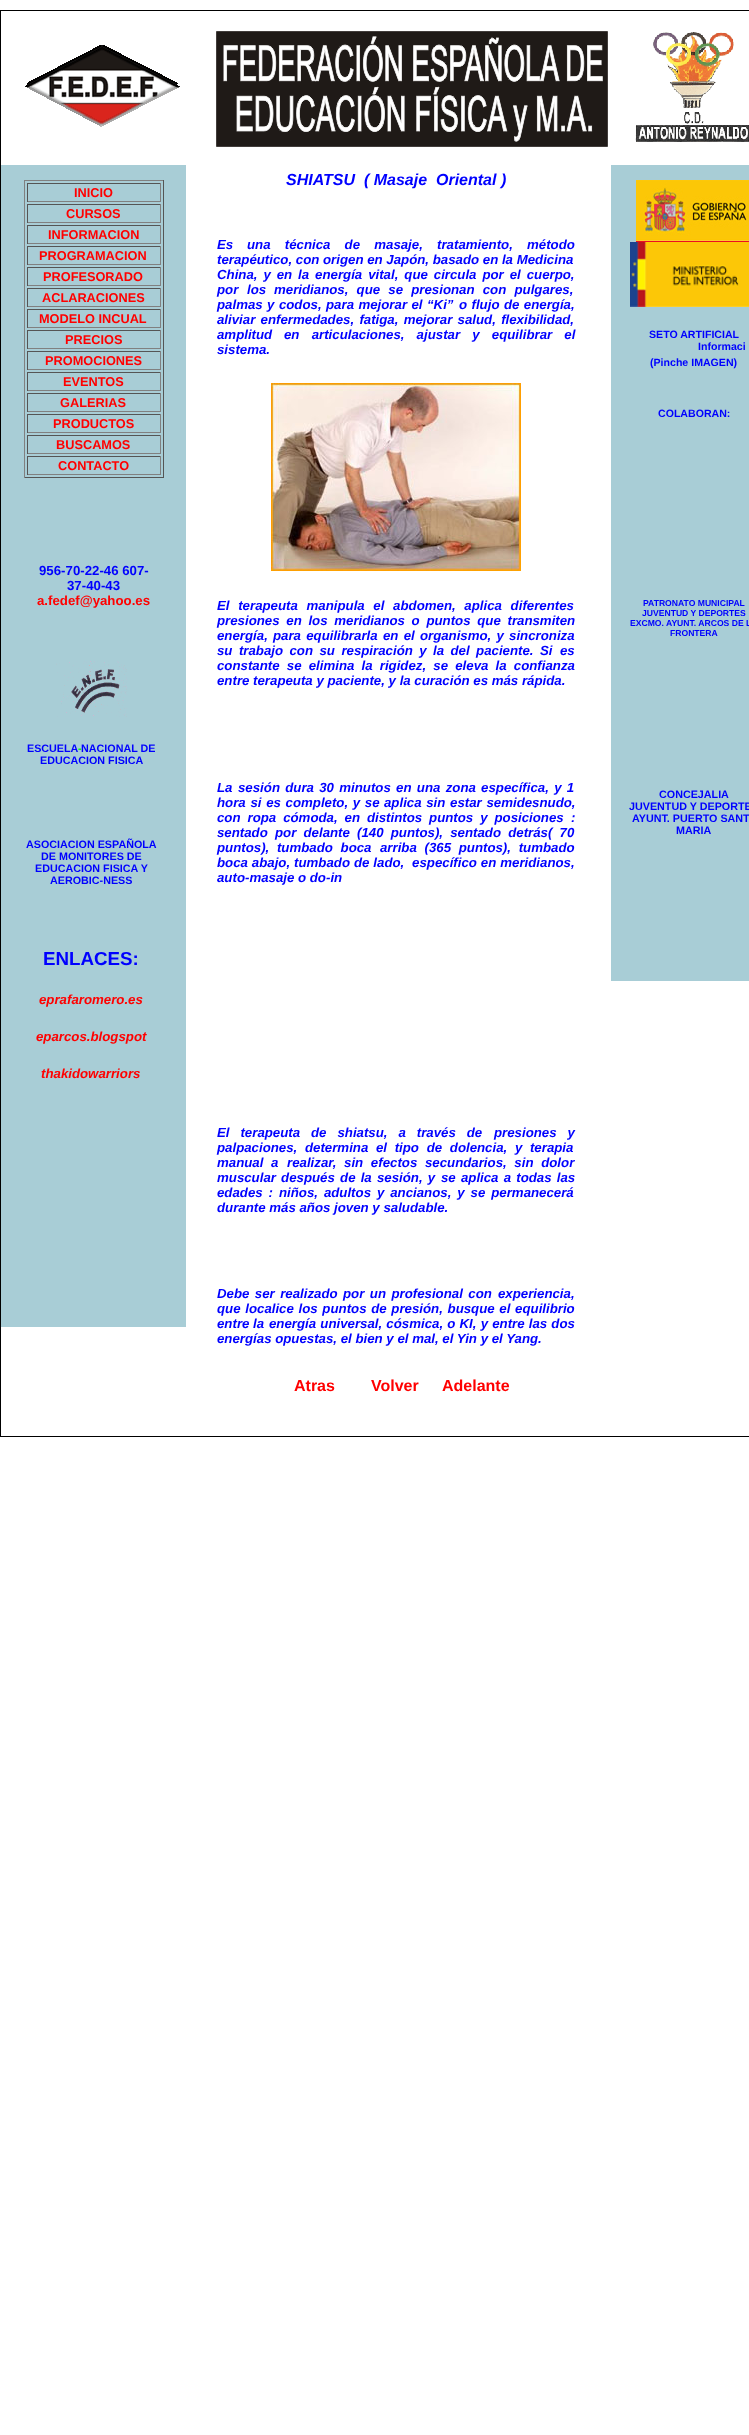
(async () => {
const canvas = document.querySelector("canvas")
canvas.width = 749
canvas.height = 2435
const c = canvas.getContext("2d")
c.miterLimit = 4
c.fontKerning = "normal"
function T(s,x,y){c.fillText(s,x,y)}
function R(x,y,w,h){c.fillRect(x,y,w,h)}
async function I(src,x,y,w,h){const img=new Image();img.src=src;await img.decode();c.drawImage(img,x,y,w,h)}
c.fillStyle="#fff"
R(0,0,749,2435)
c.strokeStyle="#000"
c.strokeRect(.5,10.5,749,1426)
await I("1.png",25,45,155,82)
await I("2.png",216,31,392,116)
await I("3.png",635,32,114,110)
c.fillStyle="#a8cdd6"
R(1,165,185,1162)
c.fillStyle="#808080"
R(24,180,140,1)
c.fillStyle="#555"
R(163,180,1,298)
R(24,477,140,1)
c.fillStyle="#808080"
R(24,180,1,298)
c.fillStyle="#555"
R(27,183,134,1)
c.fillStyle="#808080"
R(160,183,1,19)
R(27,201,134,1)
c.fillStyle="#555"
R(27,183,1,19)
c.font="bold 12.75px Liberation Sans"
c.fillStyle="#f00"
T("INICIO",74,197)
c.fillStyle="#555"
R(27,204,134,1)
c.fillStyle="#808080"
R(160,204,1,19)
R(27,222,134,1)
c.fillStyle="#555"
R(27,204,1,19)
c.fillStyle="#f00"
T("CURSOS",66,218)
c.fillStyle="#555"
R(27,225,134,1)
c.fillStyle="#808080"
R(160,225,1,19)
R(27,243,134,1)
c.fillStyle="#555"
R(27,225,1,19)
c.fillStyle="#f00"
T("INFORMACION",48,239)
c.fillStyle="#555"
R(27,246,134,1)
c.fillStyle="#808080"
R(160,246,1,19)
R(27,264,134,1)
c.fillStyle="#555"
R(27,246,1,19)
c.fillStyle="#f00"
T("PROGRAMACION",39,260)
c.fillStyle="#555"
R(27,267,134,1)
c.fillStyle="#808080"
R(160,267,1,19)
R(27,285,134,1)
c.fillStyle="#555"
R(27,267,1,19)
c.fillStyle="#f00"
T("PROFESORADO",43,281)
c.fillStyle="#555"
R(27,288,134,1)
c.fillStyle="#808080"
R(160,288,1,19)
R(27,306,134,1)
c.fillStyle="#555"
R(27,288,1,19)
c.fillStyle="#f00"
T("ACLARACIONES",42,302)
c.fillStyle="#555"
R(27,309,134,1)
c.fillStyle="#808080"
R(160,309,1,19)
R(27,327,134,1)
c.fillStyle="#555"
R(27,309,1,19)
c.fillStyle="#f00"
T("MODELO INCUAL",39,323)
c.fillStyle="#555"
R(27,330,134,1)
c.fillStyle="#808080"
R(160,330,1,19)
R(27,348,134,1)
c.fillStyle="#555"
R(27,330,1,19)
c.fillStyle="#f00"
T("PRECIOS",65,344)
c.fillStyle="#555"
R(27,351,134,1)
c.fillStyle="#808080"
R(160,351,1,19)
R(27,369,134,1)
c.fillStyle="#555"
R(27,351,1,19)
c.fillStyle="#f00"
T("PROMOCIONES",45,365)
c.fillStyle="#555"
R(27,372,134,1)
c.fillStyle="#808080"
R(160,372,1,19)
R(27,390,134,1)
c.fillStyle="#555"
R(27,372,1,19)
c.fillStyle="#f00"
T("EVENTOS",63,386)
c.fillStyle="#555"
R(27,393,134,1)
c.fillStyle="#808080"
R(160,393,1,19)
R(27,411,134,1)
c.fillStyle="#555"
R(27,393,1,19)
c.fillStyle="#f00"
T("GALERIAS",60,407)
c.fillStyle="#555"
R(27,414,134,1)
c.fillStyle="#808080"
R(160,414,1,19)
R(27,432,134,1)
c.fillStyle="#555"
R(27,414,1,19)
c.fillStyle="#f00"
T("PRODUCTOS",53,428)
c.fillStyle="#555"
R(27,435,134,1)
c.fillStyle="#808080"
R(160,435,1,19)
R(27,453,134,1)
c.fillStyle="#555"
R(27,435,1,19)
c.fillStyle="#f00"
T("BUSCAMOS",56,449)
c.fillStyle="#555"
R(27,456,134,1)
c.fillStyle="#808080"
R(160,456,1,19)
R(27,474,134,1)
c.fillStyle="#555"
R(27,456,1,19)
c.fillStyle="#f00"
T("CONTACTO",58,470)
c.font="bold 13.25px Liberation Sans"
c.fillStyle="#00f"
T("956-70-22-46 607-",39,575)
T("37-40-43",67,590)
c.fillStyle="#f00"
T("a.fedef@yahoo.es",37,605)
await I("4.png",56,661,71,56)
c.font="bold 10.75px Liberation Sans"
c.fillStyle="#00f"
T("ESCUELA",27,752)
c.fillStyle="#0f0"
T("-",78,752)
c.fillStyle="#00f"
T("NACIONAL DE",81,752)
T("EDUCACION FISICA",40,764)
T("ASOCIACION ESPAÑOLA",26,848)
T("DE MONITORES DE",41,860)
T("EDUCACION FISICA Y",35,872)
T("AEROBIC-NESS",50,884)
c.font="bold 18.75px Liberation Sans"
T("ENLACES:",43,965)
c.font="italic bold 13.25px Liberation Sans"
c.fillStyle="#f00"
T("eprafaromero.es",39,1004)
T("eparcos.blogspot",36,1041)
T("thakidowarriors",41,1078)
c.font="italic bold 16px Liberation Sans"
c.fillStyle="#00f"
T("SHIATSU  ( Masaje",286,185)
T("Oriental )",436,185)
c.font="italic bold 13.25px Liberation Sans"
T("Es",217,249)
c.wordSpacing="10.5px"
T("una técnica de masaje, tratamiento, método",247,249)
c.wordSpacing="0px"
T("terapéutico, con origen en Japón, basado en la Medicina",217,264)
c.wordSpacing="2.25px"
T("China, y en la energía vital, que circula por el cuerpo,",217,279)
c.wordSpacing="5px"
T("por los",217,294)
c.wordSpacing="4.5px"
T("meridianos, que se presionan con pulgares,",274,294)
c.wordSpacing="0.75px"
T("palmas y codos, para mejorar el “Ki”",217,309)
T("o flujo de energía,",459,309)
c.wordSpacing="1.6px"
T("aliviar enfermedades, fatiga, mejorar salud, flexibilidad,",217,324)
c.wordSpacing="0px"
T("amplitud",217,339)
c.wordSpacing="8.5px"
T("en articulaciones, ajustar y equilibrar el",284,339)
c.wordSpacing="0px"
T("sistema.",217,354)
await I("5.png",271,383,250,188)
c.wordSpacing="5px"
T("El terapeuta manipula el abdomen, aplica diferentes",217,610)
c.wordSpacing="3px"
T("presiones en los meridianos o puntos que transmiten",217,625)
c.wordSpacing="1.5px"
T("energía, para equilibrarla",217,640)
T("en el organismo, y sincroniza",383,640)
c.wordSpacing="2.75px"
T("su trabajo con su respiración y la del paciente. Si",217,655)
c.wordSpacing="0px"
T("es",560,655)
c.wordSpacing="3.5px"
T("constante se elimina la rigidez, se eleva la confianza",217,670)
c.wordSpacing="0px"
T("entre terapeuta y paciente, y la curación es más rápida.",217,685)
T("La",217,792)
c.wordSpacing="1.6px"
T("sesión dura 30 minutos en una zona específica, y 1",238,792)
c.wordSpacing="1px"
T("hora si es completo, y se",217,807)
T("aplica sin estar semidesnudo,",384,807)
c.wordSpacing="3.25px"
T("con ropa cómoda, en distintos puntos y posiciones",217,822)
c.wordSpacing="0px"
T(":",571,822)
c.wordSpacing="3.5px"
T("sentado por delante (140 puntos), sentado detrás( 70",217,837)
c.wordSpacing="4px"
T("puntos), tumbado boca",217,852)
T("arriba (365 puntos), tumbado",380,852)
c.wordSpacing="0.25px"
T("boca abajo, tumbado de lado,  específico en meridianos,",217,867)
c.wordSpacing="0px"
T("auto-masaje o do-in",217,882)
c.wordSpacing="7.25px"
T("El terapeuta de shiatsu, a través de",217,1137)
T("presiones y",494,1137)
c.wordSpacing="4px"
T("palpaciones, determina el tipo de dolencia, y terapia",217,1152)
T("manual a",217,1167)
T("realizar, sin efectos secundarios, sin dolor",287,1167)
c.wordSpacing="1.5px"
T("muscular después de la sesión, y",217,1182)
T("se aplica a todas las",441,1182)
c.wordSpacing="2.25px"
T("edades : niños, adultos y ancianos, y se permanecerá",217,1197)
c.wordSpacing="0px"
T("durante más años joven y saludable.",217,1212)
c.wordSpacing="1.75px"
T("Debe ser realizado por un profesional con",217,1298)
c.wordSpacing="0px"
T("experiencia,",498,1298)
c.wordSpacing="1px"
T("que localice los puntos de presión, busque el equilibrio",217,1313)
c.wordSpacing="0px"
T("entre la",217,1328)
c.wordSpacing="0.5px"
T("energía universal, cósmica, o KI, y entre las dos",269,1328)
c.wordSpacing="0px"
T("energías opuestas, el bien y el mal, el Yin y el Yang.",217,1343)
c.fillStyle="#a8cdd6"
R(611,165,138,816)
await I("6.png",636,180,113,62)
await I("7.png",630,242,119,65)
c.font="bold 10.6px Liberation Sans"
c.fillStyle="#00f"
T("SETO ARTIFICIAL",649,338)
T("Informaci",698,350)
T("(Pinche IMAGEN)",650,366)
T("COLABORAN:",658,417)
c.font="bold 8.6px Liberation Sans"
T("PATRONATO MUNICIPAL",643,606)
T("JUVENTUD Y DEPORTES",642,616)
T("EXCMO. AYUNT. ARCOS DE L",630,626)
T("FRONTERA",670,636)
c.font="bold 10.75px Liberation Sans"
T("CONCEJALIA",659,798)
T("JUVENTUD Y DEPORTE",629,810)
T("AYUNT. PUERTO SANT",632,822)
T("MARIA",676,834)
c.font="bold 16px Liberation Sans"
c.fillStyle="#f00"
T("Atras",294,1391)
T("Volver",371,1391)
T("Adelante",442,1391)
})()
